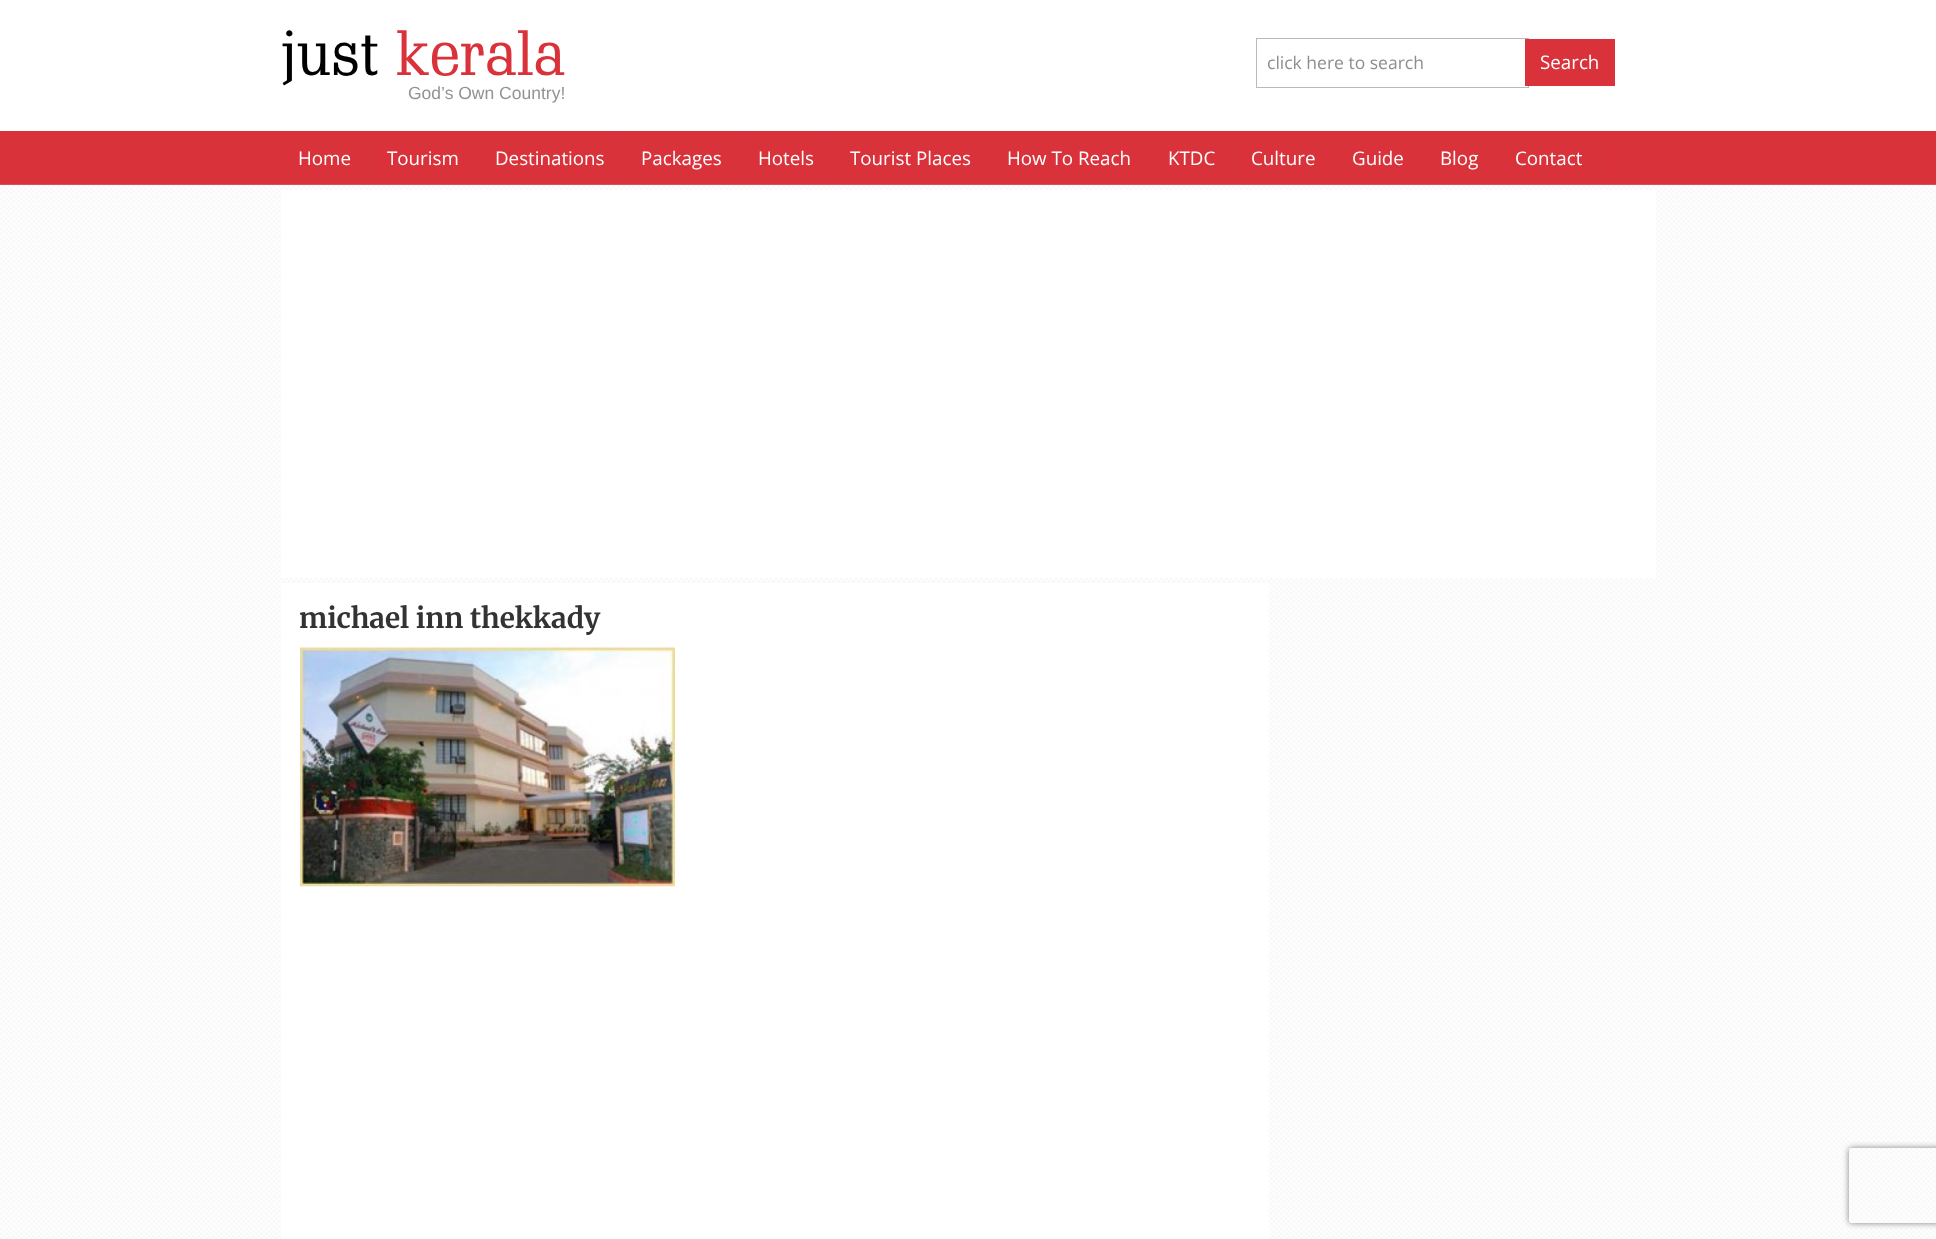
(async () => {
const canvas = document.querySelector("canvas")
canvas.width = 1936
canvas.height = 1239
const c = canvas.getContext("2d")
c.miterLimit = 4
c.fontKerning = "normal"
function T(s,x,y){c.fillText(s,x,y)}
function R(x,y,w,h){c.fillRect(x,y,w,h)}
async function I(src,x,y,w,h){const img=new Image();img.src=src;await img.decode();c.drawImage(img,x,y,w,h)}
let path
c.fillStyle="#fff"
R(0,0,1936,1239)
await I("1.png",0,185,1936,1054)
c.font="62.5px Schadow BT"
c.fillStyle="#000"
T("just",281,75)
c.fillStyle="#da323a"
T("kerala",396,75)
c.font="17.5px Liberation Sans"
c.fillStyle="#939393"
T("God’s Own Country!",408,99)
c.strokeStyle="#bdb9b9"
c.strokeRect(1256.5,38.5,272,49)
c.font="17.5px Open Sans"
c.fillStyle="#8f8d8d"
T("click here to search",1267,69)
c.fillStyle="#da323a"
R(1525,39,90,47)
c.font="18.75px Open Sans"
c.fillStyle="#fff"
T("Search",1540,69)
c.fillStyle="#da323a"
R(0,131,1936,53)
c.fillStyle="#d94f56"
R(0,184,1936,1)
c.fillStyle="#d1343b"
R(369,131,1,53)
c.fillStyle="#fff"
T("Home",298,165)
c.fillStyle="#d1343b"
R(476,131,1,53)
c.fillStyle="#fff"
T("Tourism",387,165)
c.fillStyle="#d1343b"
R(623,131,1,53)
c.fillStyle="#fff"
T("Destinations",495,165)
c.fillStyle="#d1343b"
R(739,131,1,53)
c.fillStyle="#fff"
T("Packages",641,165)
c.fillStyle="#d1343b"
R(831,131,1,53)
c.fillStyle="#fff"
T("Hotels",758,165)
c.fillStyle="#d1343b"
R(989,131,1,53)
c.fillStyle="#fff"
T("Tourist Places",850,165)
c.fillStyle="#d1343b"
R(1149,131,1,53)
c.fillStyle="#fff"
T("How To Reach",1007,165)
c.fillStyle="#d1343b"
R(1233,131,1,53)
c.fillStyle="#fff"
T("KTDC",1168,165)
c.fillStyle="#d1343b"
R(1333,131,1,53)
c.fillStyle="#fff"
T("Culture",1251,165)
c.fillStyle="#d1343b"
R(1421,131,1,53)
c.fillStyle="#fff"
T("Guide",1352,165)
c.fillStyle="#d1343b"
R(1496,131,1,53)
c.fillStyle="#fff"
T("Blog",1440,165)
c.fillStyle="#d1343b"
R(1600,131,1,53)
c.fillStyle="#fff"
T("Contact",1515,165)
R(281,190,1375,388)
R(281,583,988,656)
c.font="bold 28px Merriweather"
c.fillStyle="#333"
T("michael inn thekkady",299,628)
await I("2.png",300,647,375,240)
c.save()
path = new Path2D("M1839 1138h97v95h-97zm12.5 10h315c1.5 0 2.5 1 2.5 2.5v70c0 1.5-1 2.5-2.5 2.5h-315c-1.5 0-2.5-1-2.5-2.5v-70c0-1.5 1-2.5 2.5-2.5z")
c.clip(path,"evenodd")
c.fillStyle="#808080"
c.filter="blur(3px)"
c.beginPath()
c.roundRect(1849,1148,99,75,2.5)
c.fill()
c.filter="none"
c.restore()
})()
